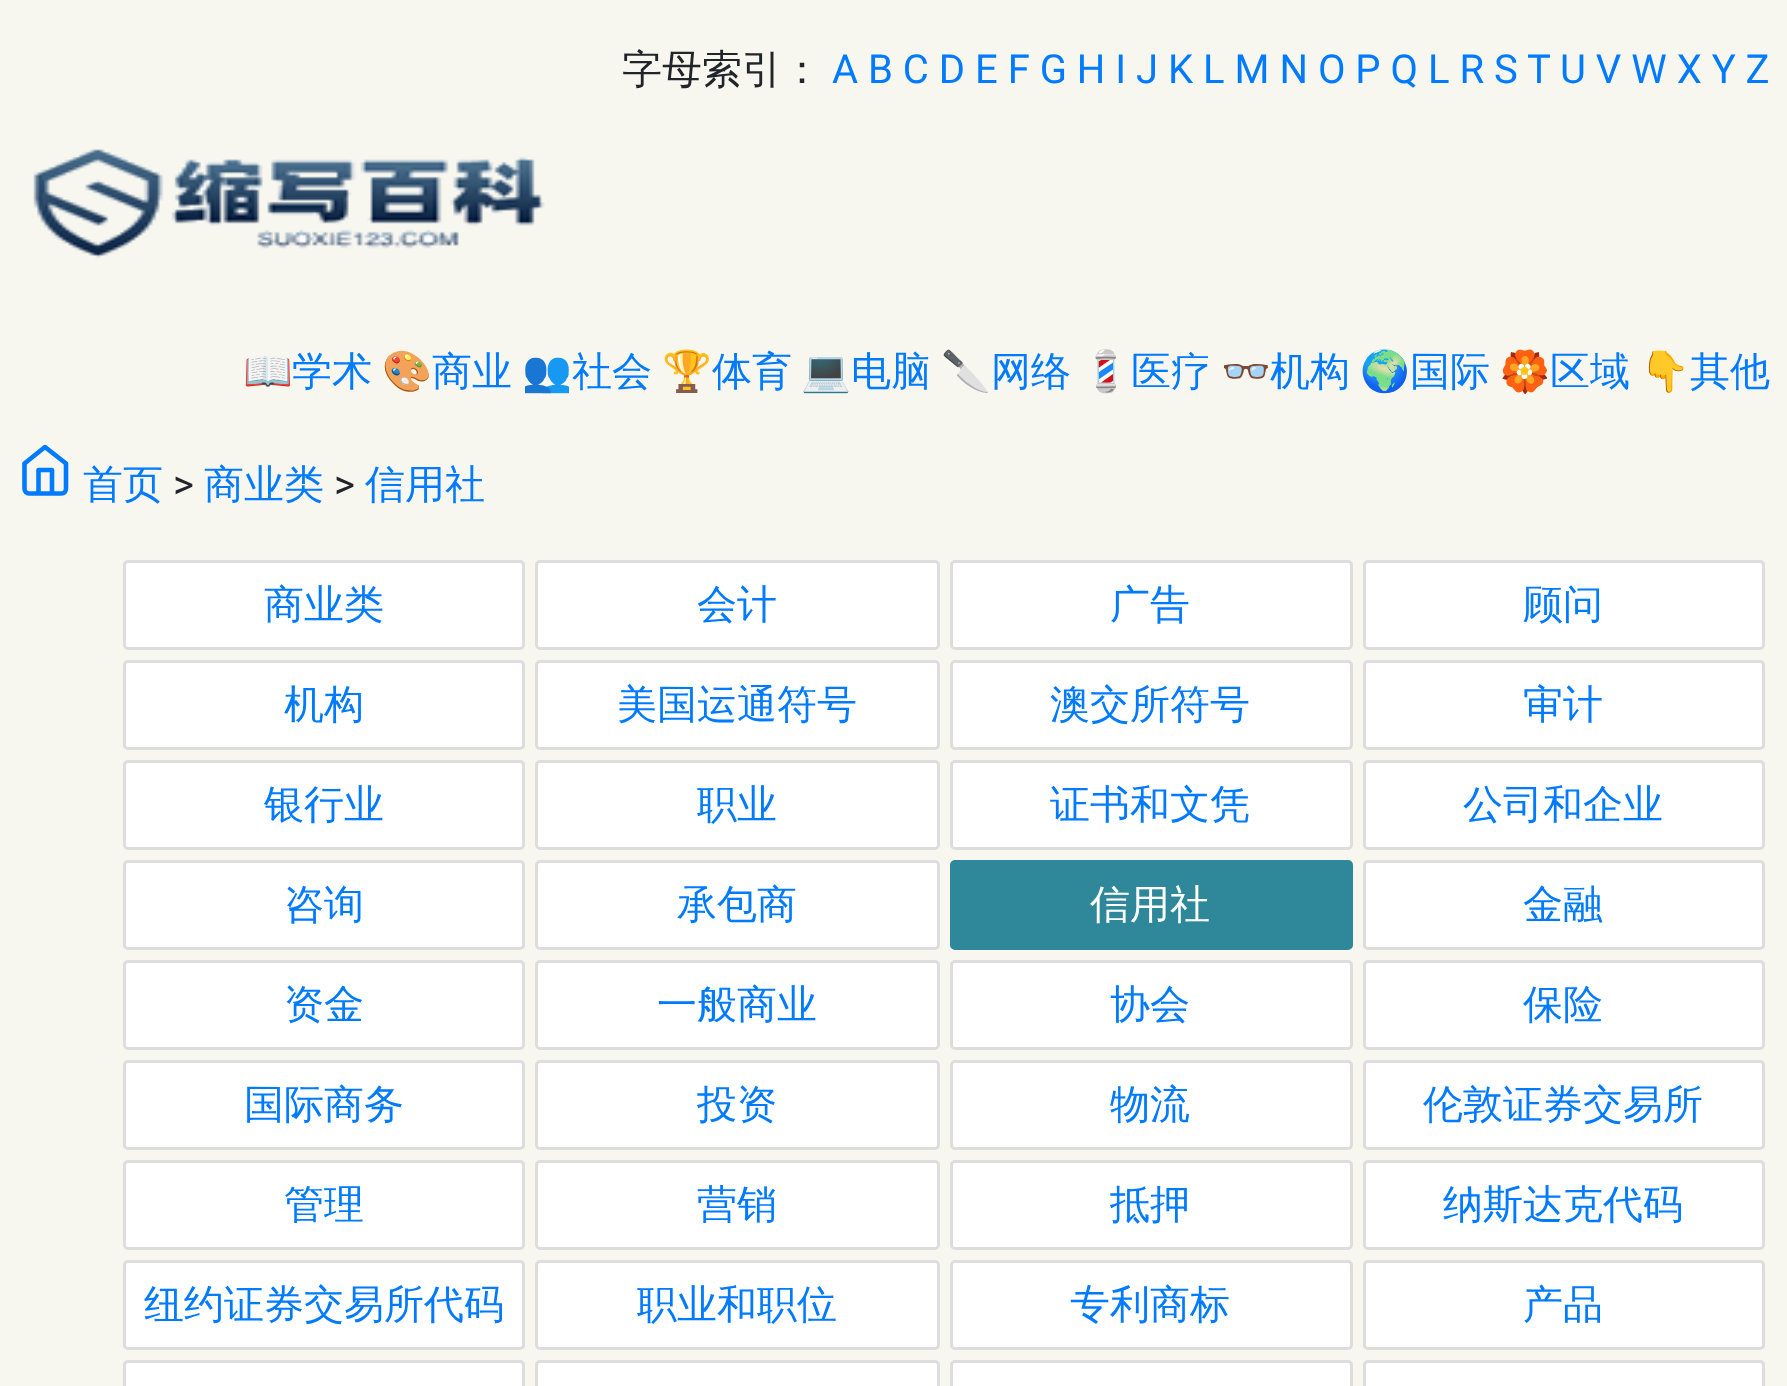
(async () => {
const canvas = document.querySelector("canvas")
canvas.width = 1787
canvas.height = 1386
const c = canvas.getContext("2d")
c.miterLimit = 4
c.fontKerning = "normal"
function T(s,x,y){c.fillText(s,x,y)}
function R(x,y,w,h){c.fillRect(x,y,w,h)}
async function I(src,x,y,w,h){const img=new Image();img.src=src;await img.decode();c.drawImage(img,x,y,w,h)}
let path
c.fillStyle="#f7f7f0"
R(0,0,1787,1386)
c.font="500 40px WenQuanYi Zen Hei"
c.fillStyle="#212529"
T("字母索引：",622,83)
c.font="40px Roboto"
c.fillStyle="#007bff"
T("A B C D E F G H I J K L M N O P Q L R S",832,83)
T("T",1527,83)
T("U V W X Y Z",1560,83)
await I("1.png",33,149,512,110)
c.font="40px Noto Color Emoji"
T("📖",243,385)
c.font="500 40px WenQuanYi Zen Hei"
T("学术",292,385)
c.font="40px Noto Color Emoji"
T("🎨",382,385)
c.font="500 40px WenQuanYi Zen Hei"
T("商业",432,385)
c.font="40px Noto Color Emoji"
T("👥",522,385)
c.font="500 40px WenQuanYi Zen Hei"
T("社会",572,385)
c.font="40px Noto Color Emoji"
T("🏆",662,385)
c.font="500 40px WenQuanYi Zen Hei"
T("体育",712,385)
c.font="40px Noto Color Emoji"
T("💻",801,385)
c.font="500 40px WenQuanYi Zen Hei"
T("电脑",851,385)
c.font="40px Noto Color Emoji"
T("🔪",941,385)
c.font="500 40px WenQuanYi Zen Hei"
T("网络",991,385)
c.font="40px Noto Color Emoji"
T("💈",1081,385)
c.font="500 40px WenQuanYi Zen Hei"
T("医疗",1131,385)
c.font="40px Noto Color Emoji"
T("👓",1221,385)
c.font="500 40px WenQuanYi Zen Hei"
T("机构",1270,385)
c.font="40px Noto Color Emoji"
T("🌍",1360,385)
c.font="500 40px WenQuanYi Zen Hei"
T("国际",1410,385)
c.font="40px Noto Color Emoji"
T("🏵",1500,385)
c.font="500 40px WenQuanYi Zen Hei"
T("区域",1550,385)
c.font="40px Noto Color Emoji"
T("👇",1640,385)
c.font="500 40px WenQuanYi Zen Hei"
T("其他",1690,385)
path = new Path2D("M24.5 463.5l20.5-16.5l21 16.5v25c0 3-2 5-4.5 5h-32.5c-2.5 0-4.5-2-4.5-5zm14 30v-23.5h13.5v23.5")
c.strokeStyle="#007bff"
c.lineWidth=4.6
c.lineCap="round"
c.lineJoin="round"
c.stroke(path)
T("首页",83,498)
c.font="40px Roboto"
c.fillStyle="#212529"
T(">",173,498)
c.font="500 40px WenQuanYi Zen Hei"
c.fillStyle="#007bff"
T("商业类",204,498)
c.font="40px Roboto"
c.fillStyle="#212529"
T(">",334,498)
c.font="500 40px WenQuanYi Zen Hei"
c.fillStyle="#007bff"
T("信用社",365,498)
c.fillStyle="#fff"
c.beginPath()
c.roundRect(124.5,561.5,399,87,3.5)
c.fill()
c.strokeStyle="#ddd"
c.lineWidth=3
c.lineJoin="miter"
c.stroke()
c.fillStyle="#007bff"
T("商业类",264,618)
c.fillStyle="#fff"
c.beginPath()
c.roundRect(536.5,561.5,402,87,3.5)
c.fill()
c.stroke()
c.fillStyle="#007bff"
T("会计",697,618)
c.fillStyle="#fff"
c.beginPath()
c.roundRect(951.5,561.5,400,87,3.5)
c.fill()
c.stroke()
c.fillStyle="#007bff"
T("广告",1110,618)
c.fillStyle="#fff"
c.beginPath()
c.roundRect(1364.5,561.5,399,87,3.5)
c.fill()
c.stroke()
c.fillStyle="#007bff"
T("顾问",1523,618)
c.fillStyle="#fff"
c.beginPath()
c.roundRect(124.5,661.5,399,87,3.5)
c.fill()
c.stroke()
c.fillStyle="#007bff"
T("机构",284,718)
c.fillStyle="#fff"
c.beginPath()
c.roundRect(536.5,661.5,402,87,3.5)
c.fill()
c.stroke()
c.fillStyle="#007bff"
T("美国运通符号",617,718)
c.fillStyle="#fff"
c.beginPath()
c.roundRect(951.5,661.5,400,87,3.5)
c.fill()
c.stroke()
c.fillStyle="#007bff"
T("澳交所符号",1050,718)
c.fillStyle="#fff"
c.beginPath()
c.roundRect(1364.5,661.5,399,87,3.5)
c.fill()
c.stroke()
c.fillStyle="#007bff"
T("审计",1523,718)
c.fillStyle="#fff"
c.beginPath()
c.roundRect(124.5,761.5,399,87,3.5)
c.fill()
c.stroke()
c.fillStyle="#007bff"
T("银行业",264,818)
c.fillStyle="#fff"
c.beginPath()
c.roundRect(536.5,761.5,402,87,3.5)
c.fill()
c.stroke()
c.fillStyle="#007bff"
T("职业",697,818)
c.fillStyle="#fff"
c.beginPath()
c.roundRect(951.5,761.5,400,87,3.5)
c.fill()
c.stroke()
c.fillStyle="#007bff"
T("证书和文凭",1050,818)
c.fillStyle="#fff"
c.beginPath()
c.roundRect(1364.5,761.5,399,87,3.5)
c.fill()
c.stroke()
c.fillStyle="#007bff"
T("公司和企业",1463,818)
c.fillStyle="#fff"
c.beginPath()
c.roundRect(124.5,861.5,399,87,3.5)
c.fill()
c.stroke()
c.fillStyle="#007bff"
T("咨询",284,918)
c.fillStyle="#fff"
c.beginPath()
c.roundRect(536.5,861.5,402,87,3.5)
c.fill()
c.stroke()
c.fillStyle="#007bff"
T("承包商",677,918)
c.fillStyle="#2f889a"
c.beginPath()
c.roundRect(951.5,861.5,400,87,3.5)
c.fill()
c.strokeStyle="#2f889a"
c.stroke()
c.fillStyle="#fff"
T("信用社",1090,918)
c.beginPath()
c.roundRect(1364.5,861.5,399,87,3.5)
c.fill()
c.strokeStyle="#ddd"
c.stroke()
c.fillStyle="#007bff"
T("金融",1523,918)
c.fillStyle="#fff"
c.beginPath()
c.roundRect(124.5,961.5,399,87,3.5)
c.fill()
c.stroke()
c.fillStyle="#007bff"
T("资金",284,1018)
c.fillStyle="#fff"
c.beginPath()
c.roundRect(536.5,961.5,402,87,3.5)
c.fill()
c.stroke()
c.fillStyle="#007bff"
T("一般商业",657,1018)
c.fillStyle="#fff"
c.beginPath()
c.roundRect(951.5,961.5,400,87,3.5)
c.fill()
c.stroke()
c.fillStyle="#007bff"
T("协会",1110,1018)
c.fillStyle="#fff"
c.beginPath()
c.roundRect(1364.5,961.5,399,87,3.5)
c.fill()
c.stroke()
c.fillStyle="#007bff"
T("保险",1523,1018)
c.fillStyle="#fff"
c.beginPath()
c.roundRect(124.5,1061.5,399,87,3.5)
c.fill()
c.stroke()
c.fillStyle="#007bff"
T("国际商务",244,1118)
c.fillStyle="#fff"
c.beginPath()
c.roundRect(536.5,1061.5,402,87,3.5)
c.fill()
c.stroke()
c.fillStyle="#007bff"
T("投资",697,1118)
c.fillStyle="#fff"
c.beginPath()
c.roundRect(951.5,1061.5,400,87,3.5)
c.fill()
c.stroke()
c.fillStyle="#007bff"
T("物流",1110,1118)
c.fillStyle="#fff"
c.beginPath()
c.roundRect(1364.5,1061.5,399,87,3.5)
c.fill()
c.stroke()
c.fillStyle="#007bff"
T("伦敦证券交易所",1423,1118)
c.fillStyle="#fff"
c.beginPath()
c.roundRect(124.5,1161.5,399,87,3.5)
c.fill()
c.stroke()
c.fillStyle="#007bff"
T("管理",284,1218)
c.fillStyle="#fff"
c.beginPath()
c.roundRect(536.5,1161.5,402,87,3.5)
c.fill()
c.stroke()
c.fillStyle="#007bff"
T("营销",697,1218)
c.fillStyle="#fff"
c.beginPath()
c.roundRect(951.5,1161.5,400,87,3.5)
c.fill()
c.stroke()
c.fillStyle="#007bff"
T("抵押",1110,1218)
c.fillStyle="#fff"
c.beginPath()
c.roundRect(1364.5,1161.5,399,87,3.5)
c.fill()
c.stroke()
c.fillStyle="#007bff"
T("纳斯达克代码",1443,1218)
c.fillStyle="#fff"
c.beginPath()
c.roundRect(124.5,1261.5,399,87,3.5)
c.fill()
c.stroke()
c.fillStyle="#007bff"
T("纽约证券交易所代码",144,1318)
c.fillStyle="#fff"
c.beginPath()
c.roundRect(536.5,1261.5,402,87,3.5)
c.fill()
c.stroke()
c.fillStyle="#007bff"
T("职业和职位",637,1318)
c.fillStyle="#fff"
c.beginPath()
c.roundRect(951.5,1261.5,400,87,3.5)
c.fill()
c.stroke()
c.fillStyle="#007bff"
T("专利商标",1070,1318)
c.fillStyle="#fff"
c.beginPath()
c.roundRect(1364.5,1261.5,399,87,3.5)
c.fill()
c.stroke()
c.fillStyle="#007bff"
T("产品",1523,1318)
c.fillStyle="#fff"
c.beginPath()
c.roundRect(124.5,1361.5,399,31,3.5)
c.fill()
c.stroke()
c.beginPath()
c.roundRect(536.5,1361.5,402,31,3.5)
c.fill()
c.stroke()
c.beginPath()
c.roundRect(951.5,1361.5,400,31,3.5)
c.fill()
c.stroke()
c.beginPath()
c.roundRect(1364.5,1361.5,399,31,3.5)
c.fill()
c.stroke()
})()
